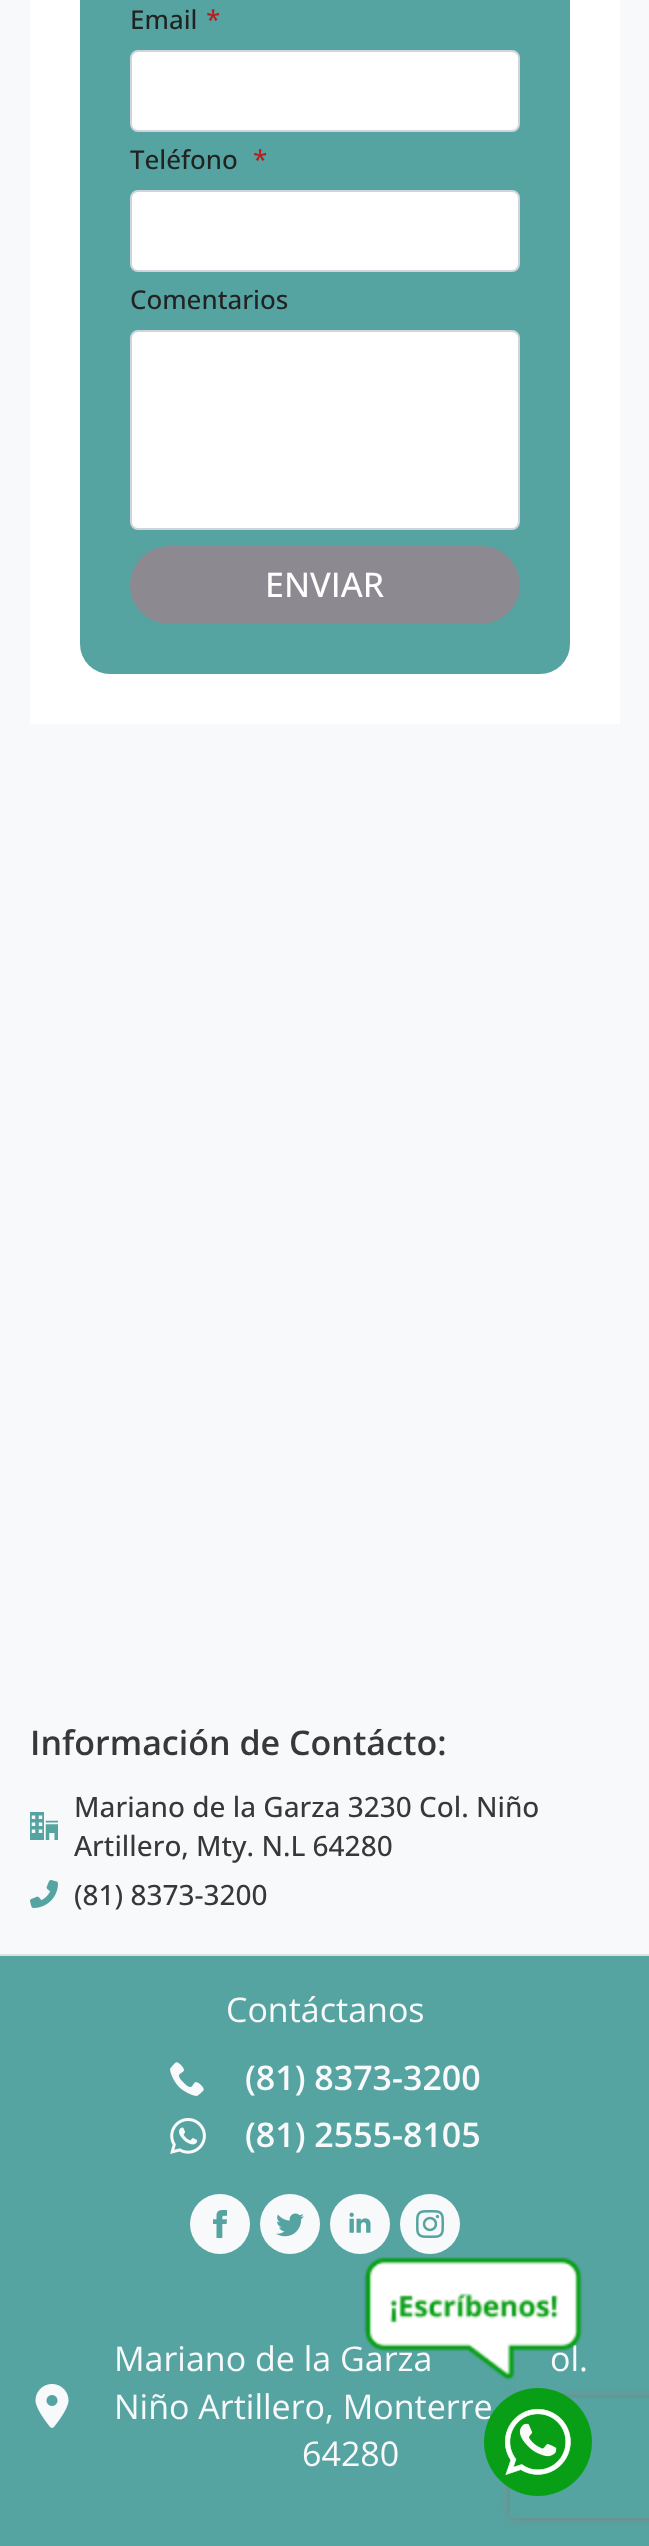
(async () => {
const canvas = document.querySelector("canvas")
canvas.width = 649
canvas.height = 2546
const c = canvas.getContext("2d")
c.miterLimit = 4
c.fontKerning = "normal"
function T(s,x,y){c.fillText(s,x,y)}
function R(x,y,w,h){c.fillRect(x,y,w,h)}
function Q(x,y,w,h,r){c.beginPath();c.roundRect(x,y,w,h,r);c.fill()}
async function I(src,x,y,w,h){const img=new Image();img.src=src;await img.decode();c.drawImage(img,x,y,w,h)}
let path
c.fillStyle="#f8f9fa"
R(0,0,649,2546)
c.fillStyle="#fff"
R(30,0,590,724)
c.fillStyle="#56a4a1"
Q(80,-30,490,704,30)
c.font="500 26px Open Sans"
c.fillStyle="#222"
T("Email",130,29)
c.fillStyle="#b91c1c"
T("*",206,29)
c.fillStyle="#fff"
c.beginPath()
c.roundRect(131,51,388,80,7)
c.fill()
c.strokeStyle="#d1d5db"
c.lineWidth=2
c.stroke()
c.fillStyle="#222"
T("Teléfono",130,169)
c.fillStyle="#b91c1c"
T("*",253,169)
c.fillStyle="#fff"
c.beginPath()
c.roundRect(131,191,388,80,7)
c.fill()
c.stroke()
c.fillStyle="#222"
T("Comentarios",130,309)
c.fillStyle="#fff"
c.beginPath()
c.roundRect(131,331,388,198,7)
c.fill()
c.stroke()
c.fillStyle="#8c8990"
Q(130,546,390,78,39)
c.font="500 34px Open Sans"
c.fillStyle="#fff"
T("ENVIAR",265,597)
c.font="600 34px Open Sans"
c.fillStyle="#38373a"
T("Información de Contácto:",30,1755)
await I("1.png",30,1812,28,28)
c.font="500 28px Open Sans"
T("Mariano de la Garza 3230 Col. Niño",74,1817)
T("Artillero, Mty. N.L 64280",74,1856)
await I("2.png",30,1880,28,28)
T("(81) 8373-3200",74,1905)
c.fillStyle="#56a4a1"
R(0,1956,649,590)
c.fillStyle="#e1e1e1"
R(0,1954,649,2)
c.font="34px Open Sans"
c.fillStyle="#f8f9fa"
T("Contáctanos",226,2022)
await I("3.png",170,2062,34,34)
c.font="600 34px Open Sans"
T("(81) 8373-3200",245,2090)
await I("4.png",170,2118,36,36)
T("(81) 2555-8105",245,2147)
c.beginPath()
c.arc(220,2224,30,0,7)
c.fill()
await I("5.png",213,2210,14,28)
c.beginPath()
c.arc(290,2224,30,0,7)
c.fill()
await I("6.png",276,2213,28,24)
c.beginPath()
c.arc(360,2224,30,0,7)
c.fill()
await I("7.png",349,2212,22,21)
c.beginPath()
c.arc(430,2224,30,0,7)
c.fill()
await I("8.png",416,2210,28,28)
await I("9.png",35,2384,34,44)
c.font="34px Open Sans"
T("Mariano de la Garza",114,2371)
T("ol.",550,2371)
T("Niño Artillero, Monterre",114,2419)
T("64280",302,2466)
await I("10.png",363,2257,220,124)
c.save()
path = new Path2D("M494 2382h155v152h-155zm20 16h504c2 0 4 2 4 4v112c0 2-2 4-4 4h-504c-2 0-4-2-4-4v-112c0-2 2-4 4-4z")
c.clip(path,"evenodd")
c.fillStyle="#808080"
c.filter="blur(5px)"
c.beginPath()
c.roundRect(510,2398,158,120,4)
c.fill()
c.filter="none"
c.restore()
await I("11.png",484,2388,108,108)
})()
